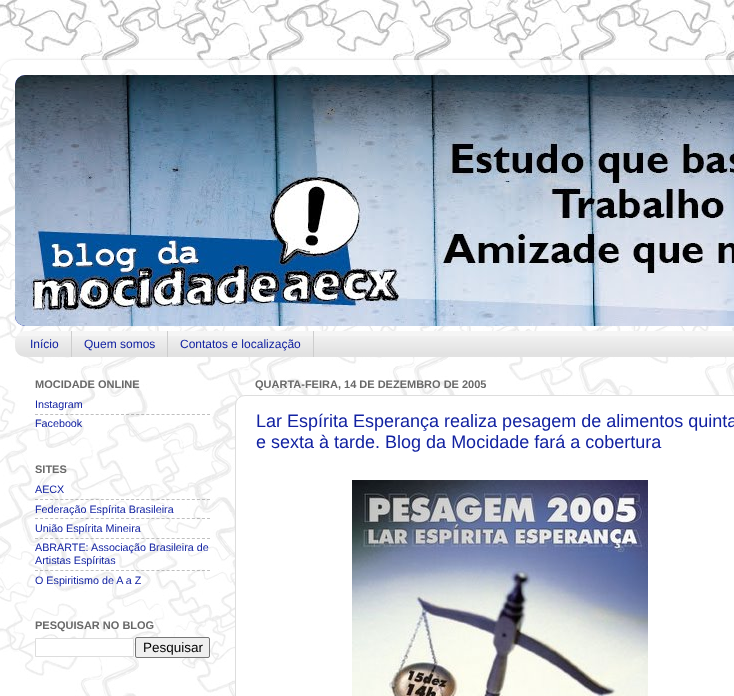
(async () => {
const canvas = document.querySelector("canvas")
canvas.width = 734
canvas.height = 696
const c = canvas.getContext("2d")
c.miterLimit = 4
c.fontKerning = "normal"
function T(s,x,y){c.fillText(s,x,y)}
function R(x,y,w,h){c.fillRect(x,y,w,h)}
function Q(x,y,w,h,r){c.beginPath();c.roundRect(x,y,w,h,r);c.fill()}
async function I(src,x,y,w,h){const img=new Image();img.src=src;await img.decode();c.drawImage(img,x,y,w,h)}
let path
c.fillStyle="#fff"
R(0,0,734,696)
await I("1.png",0,0,734,696)
c.save()
path = new Path2D("M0 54h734v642h-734zm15 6h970c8.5 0 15 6.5 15 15v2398c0 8.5-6.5 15-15 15h-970c-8.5 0-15-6.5-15-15v-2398c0-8.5 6.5-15 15-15z")
c.clip(path,"evenodd")
c.fillStyle="#00000026"
c.filter="blur(1.5px)"
c.beginPath()
c.roundRect(0,60,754,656,15)
c.fill()
c.filter="none"
c.restore()
await I("2.png",0,60,734,636)
c.fillStyle="#1222a2"
Q(15,75,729,251,10)
await I("3.png",15,75,10,10)
await I("4.png",15,75,719,251)
c.fillStyle="#f5f5f5"
Q(15,331,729,26,10)
await I("5.png",15,336,719,21)
c.fillStyle="#cdcdcd"
R(71,331,1,26)
c.font="12px Liberation Sans"
c.fillStyle="#1222a2"
T("Início",30,348)
c.fillStyle="#cdcdcd"
R(167,331,1,26)
c.fillStyle="#1222a2"
T("Quem somos",84,348)
c.fillStyle="#cdcdcd"
R(313,331,1,26)
c.fillStyle="#1222a2"
T("Contatos e localização",180,348)
c.font="bold 11px Liberation Sans"
c.fillStyle="#696969"
T("MOCIDADE ONLINE",35,388)
c.font="10.75px Liberation Sans"
c.fillStyle="#1222a2"
T("Instagram",35,408)
path = new Path2D("M35 414.5h175")
c.strokeStyle="#80808080"
c.setLineDash([3,2.06])
c.stroke(path)
T("Facebook",35,427)
c.font="bold 11px Liberation Sans"
c.fillStyle="#696969"
T("SITES",35,473)
c.font="10.75px Liberation Sans"
c.fillStyle="#1222a2"
T("AECX",35,493)
path = new Path2D("M35 499.5h175")
c.stroke(path)
T("Federação Espírita Brasileira",35,513)
path = new Path2D("M35 518.5h175")
c.stroke(path)
T("União Espírita Mineira",35,532)
path = new Path2D("M35 538.5h175")
c.stroke(path)
T("ABRARTE: Associação Brasileira de",35,551)
T("Artistas Espíritas",35,564)
path = new Path2D("M35 570.5h175")
c.stroke(path)
T("O Espiritismo de A a Z",35,584)
c.font="bold 11px Liberation Sans"
c.fillStyle="#696969"
T("PESQUISAR NO BLOG",35,629)
c.fillStyle="#fff"
c.beginPath()
c.rect(35.5,638.5,98,18)
c.fill()
c.strokeStyle="#ddd"
c.setLineDash([])
c.stroke()
c.fillStyle="#efefef"
c.beginPath()
c.roundRect(135.5,637.5,74,20,1.5)
c.fill()
c.strokeStyle="#767676"
c.stroke()
c.font="13.5px Liberation Sans"
c.fillStyle="#000"
T("Pesquisar",143,652)
c.font="bold 11px Liberation Sans"
c.fillStyle="#696969"
T("QUARTA-FEIRA, 14 DE DEZEMBRO DE 2005",255,388)
c.fillStyle="#fff"
c.beginPath()
c.roundRect(235.5,395.5,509,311,9.5)
c.fill()
c.strokeStyle="#ddd"
c.stroke()
c.font="18px Liberation Sans"
c.fillStyle="#1222a2"
T("Lar Espírita Esperança realiza pesagem de alimentos quinta",256,427)
T("e sexta à tarde. Blog da Mocidade fará a cobertura",256,448)
await I("6.png",352,480,296,216)
})()
